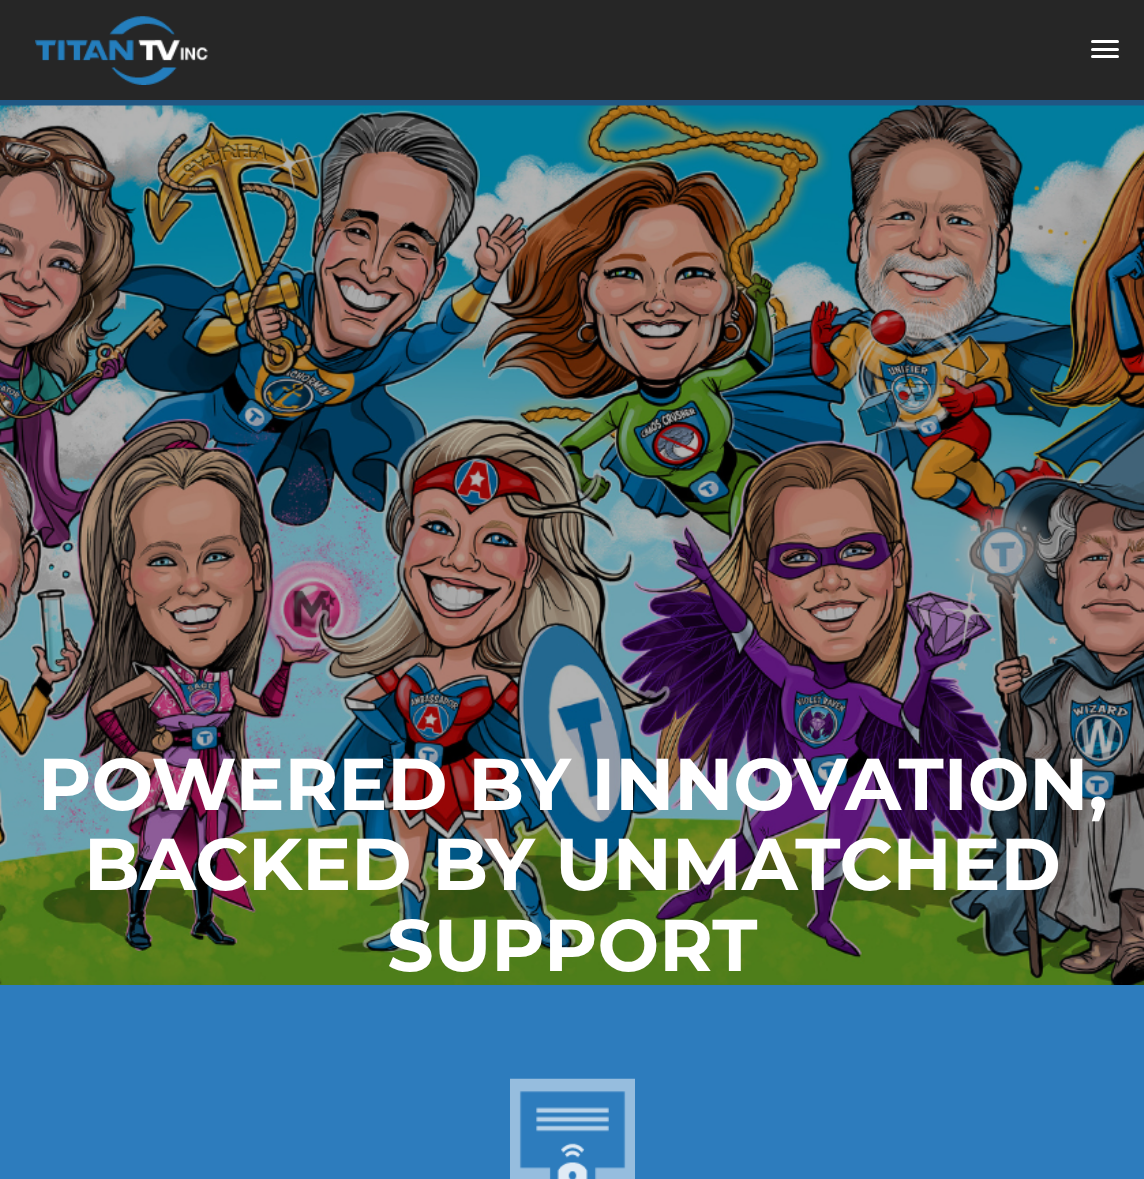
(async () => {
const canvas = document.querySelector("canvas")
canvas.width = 1144
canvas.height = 1179
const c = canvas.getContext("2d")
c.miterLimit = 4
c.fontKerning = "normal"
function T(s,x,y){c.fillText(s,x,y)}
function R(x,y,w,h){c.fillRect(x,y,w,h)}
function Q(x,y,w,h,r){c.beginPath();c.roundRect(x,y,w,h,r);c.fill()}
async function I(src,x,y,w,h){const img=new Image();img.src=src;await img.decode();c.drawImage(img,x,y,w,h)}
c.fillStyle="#262626"
R(0,0,1144,1179)
await I("1.png",35,16,173,69)
c.fillStyle="#fff"
Q(1091,40,28,3,1.5)
Q(1091,48,28,3,1.5)
Q(1091,55,28,3,1.5)
await I("2.png",0,100,1144,885)
c.font="100 73.1px Montserrat"
T("POWERED BY INNOVATION,",38,810)
T("BACKED BY UNMATCHED",84,890)
T("SUPPORT",387,971)
c.fillStyle="#2d7cbd"
R(0,985,1144,194)
await I("3.png",510,1078,125,101)
})()
